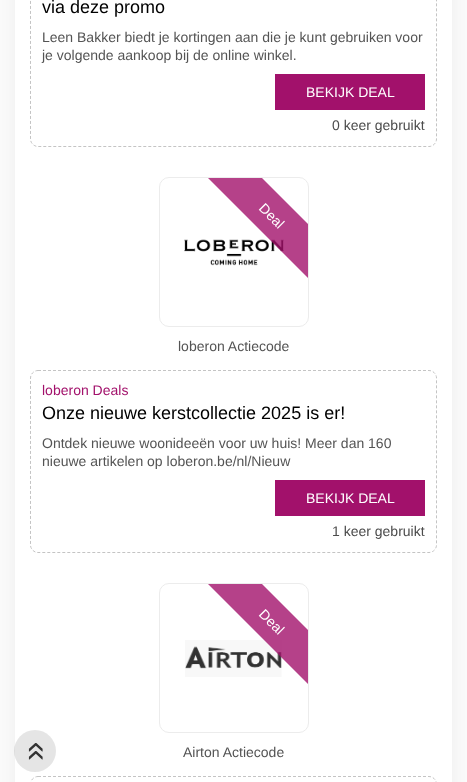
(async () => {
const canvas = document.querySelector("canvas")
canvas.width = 467
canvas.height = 782
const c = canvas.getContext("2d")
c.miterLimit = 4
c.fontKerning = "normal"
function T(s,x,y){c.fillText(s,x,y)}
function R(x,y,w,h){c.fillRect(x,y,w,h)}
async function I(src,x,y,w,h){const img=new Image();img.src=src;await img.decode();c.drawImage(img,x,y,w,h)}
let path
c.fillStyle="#fafafa"
R(0,0,467,782)
c.fillStyle="#0000000d"
c.filter="blur(7.5px)"
c.beginPath()
c.roundRect(15,-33,437,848,10)
c.fill()
c.filter="none"
c.fillStyle="#fff"
R(15,0,437,782)
c.fillStyle="#0000001a"
c.beginPath()
c.arc(35,751,21,0,7)
c.fill()
c.font="35px Liberation Sans"
c.fillStyle="#333"
c.save()
c.translate(45,761)
c.rotate(-90 * Math.PI / 180)
c.fillText("»",0,0)
c.restore()
path = new Path2D("M38-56.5h391c4 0 7.5 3.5 7.5 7.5v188c0 4-3.5 7.5-7.5 7.5h-391c-4 0-7.5-3.5-7.5-7.5v-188c0-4 3.5-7.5 7.5-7.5z")
c.strokeStyle="#c4c4c4"
c.setLineDash([3,2])
c.stroke(path)
c.font="18px Liberation Sans"
c.fillStyle="#000"
T("via deze promo",42,13)
c.font="14px Liberation Sans"
c.fillStyle="#545454"
T("Leen Bakker biedt je kortingen aan die je kunt gebruiken voor",42,42)
T("je volgende aankoop bij de online winkel.",42,60)
c.fillStyle="#a2116b"
R(275,74,150,36)
c.fillStyle="#fff"
T("BEKIJK DEAL",306,97)
c.fillStyle="#4c4c4c"
T("0 keer gebruikt",332,130)
c.beginPath()
c.roundRect(159.5,177.5,149,149,9.5)
c.strokeStyle="#ececec"
c.setLineDash([])
c.stroke()
await I("1.png",184,239,100,27)
c.fillStyle="#a2116bcc"
path = new Path2D("M308 278l-100-100h54l46 46z")
c.fill(path)
c.fillStyle="#fff"
c.save()
c.translate(258,209)
c.rotate(45 * Math.PI / 180)
c.fillText("Deal",0,0)
c.restore()
c.fillStyle="#545454"
T("loberon Actiecode",178,351)
path = new Path2D("M38 370.5h391c4 0 7.5 3.5 7.5 7.5v167c0 4-3.5 7.5-7.5 7.5h-391c-4 0-7.5-3.5-7.5-7.5v-167c0-4 3.5-7.5 7.5-7.5z")
c.strokeStyle="#c4c4c4"
c.setLineDash([3,2])
c.stroke(path)
c.fillStyle="#a2116b"
T("loberon Deals",42,395)
c.font="18px Liberation Sans"
c.fillStyle="#000"
T("Onze nieuwe kerstcollectie 2025 is er!",42,419)
c.font="14px Liberation Sans"
c.fillStyle="#545454"
T("Ontdek nieuwe woonideeën voor uw huis! Meer dan 160",42,448)
T("nieuwe artikelen op loberon.be/nl/Nieuw",42,466)
c.fillStyle="#a2116b"
R(275,480,150,36)
c.fillStyle="#fff"
T("BEKIJK DEAL",306,503)
c.fillStyle="#4c4c4c"
T("1 keer gebruikt",332,536)
c.beginPath()
c.roundRect(159.5,583.5,149,149,9.5)
c.strokeStyle="#ececec"
c.setLineDash([])
c.stroke()
await I("2.png",185,640,97,37)
c.fillStyle="#a2116bcc"
path = new Path2D("M308 684l-100-100h54l46 46z")
c.fill(path)
c.fillStyle="#fff"
c.save()
c.translate(258,615)
c.rotate(45 * Math.PI / 180)
c.fillText("Deal",0,0)
c.restore()
c.fillStyle="#545454"
T("Airton Actiecode",183,757)
path = new Path2D("M38 776.5h391c4 0 7.5 3.5 7.5 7.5v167c0 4-3.5 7.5-7.5 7.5h-391c-4 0-7.5-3.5-7.5-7.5v-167c0-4 3.5-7.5 7.5-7.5z")
c.strokeStyle="#c4c4c4"
c.setLineDash([3,2])
c.stroke(path)
})()
